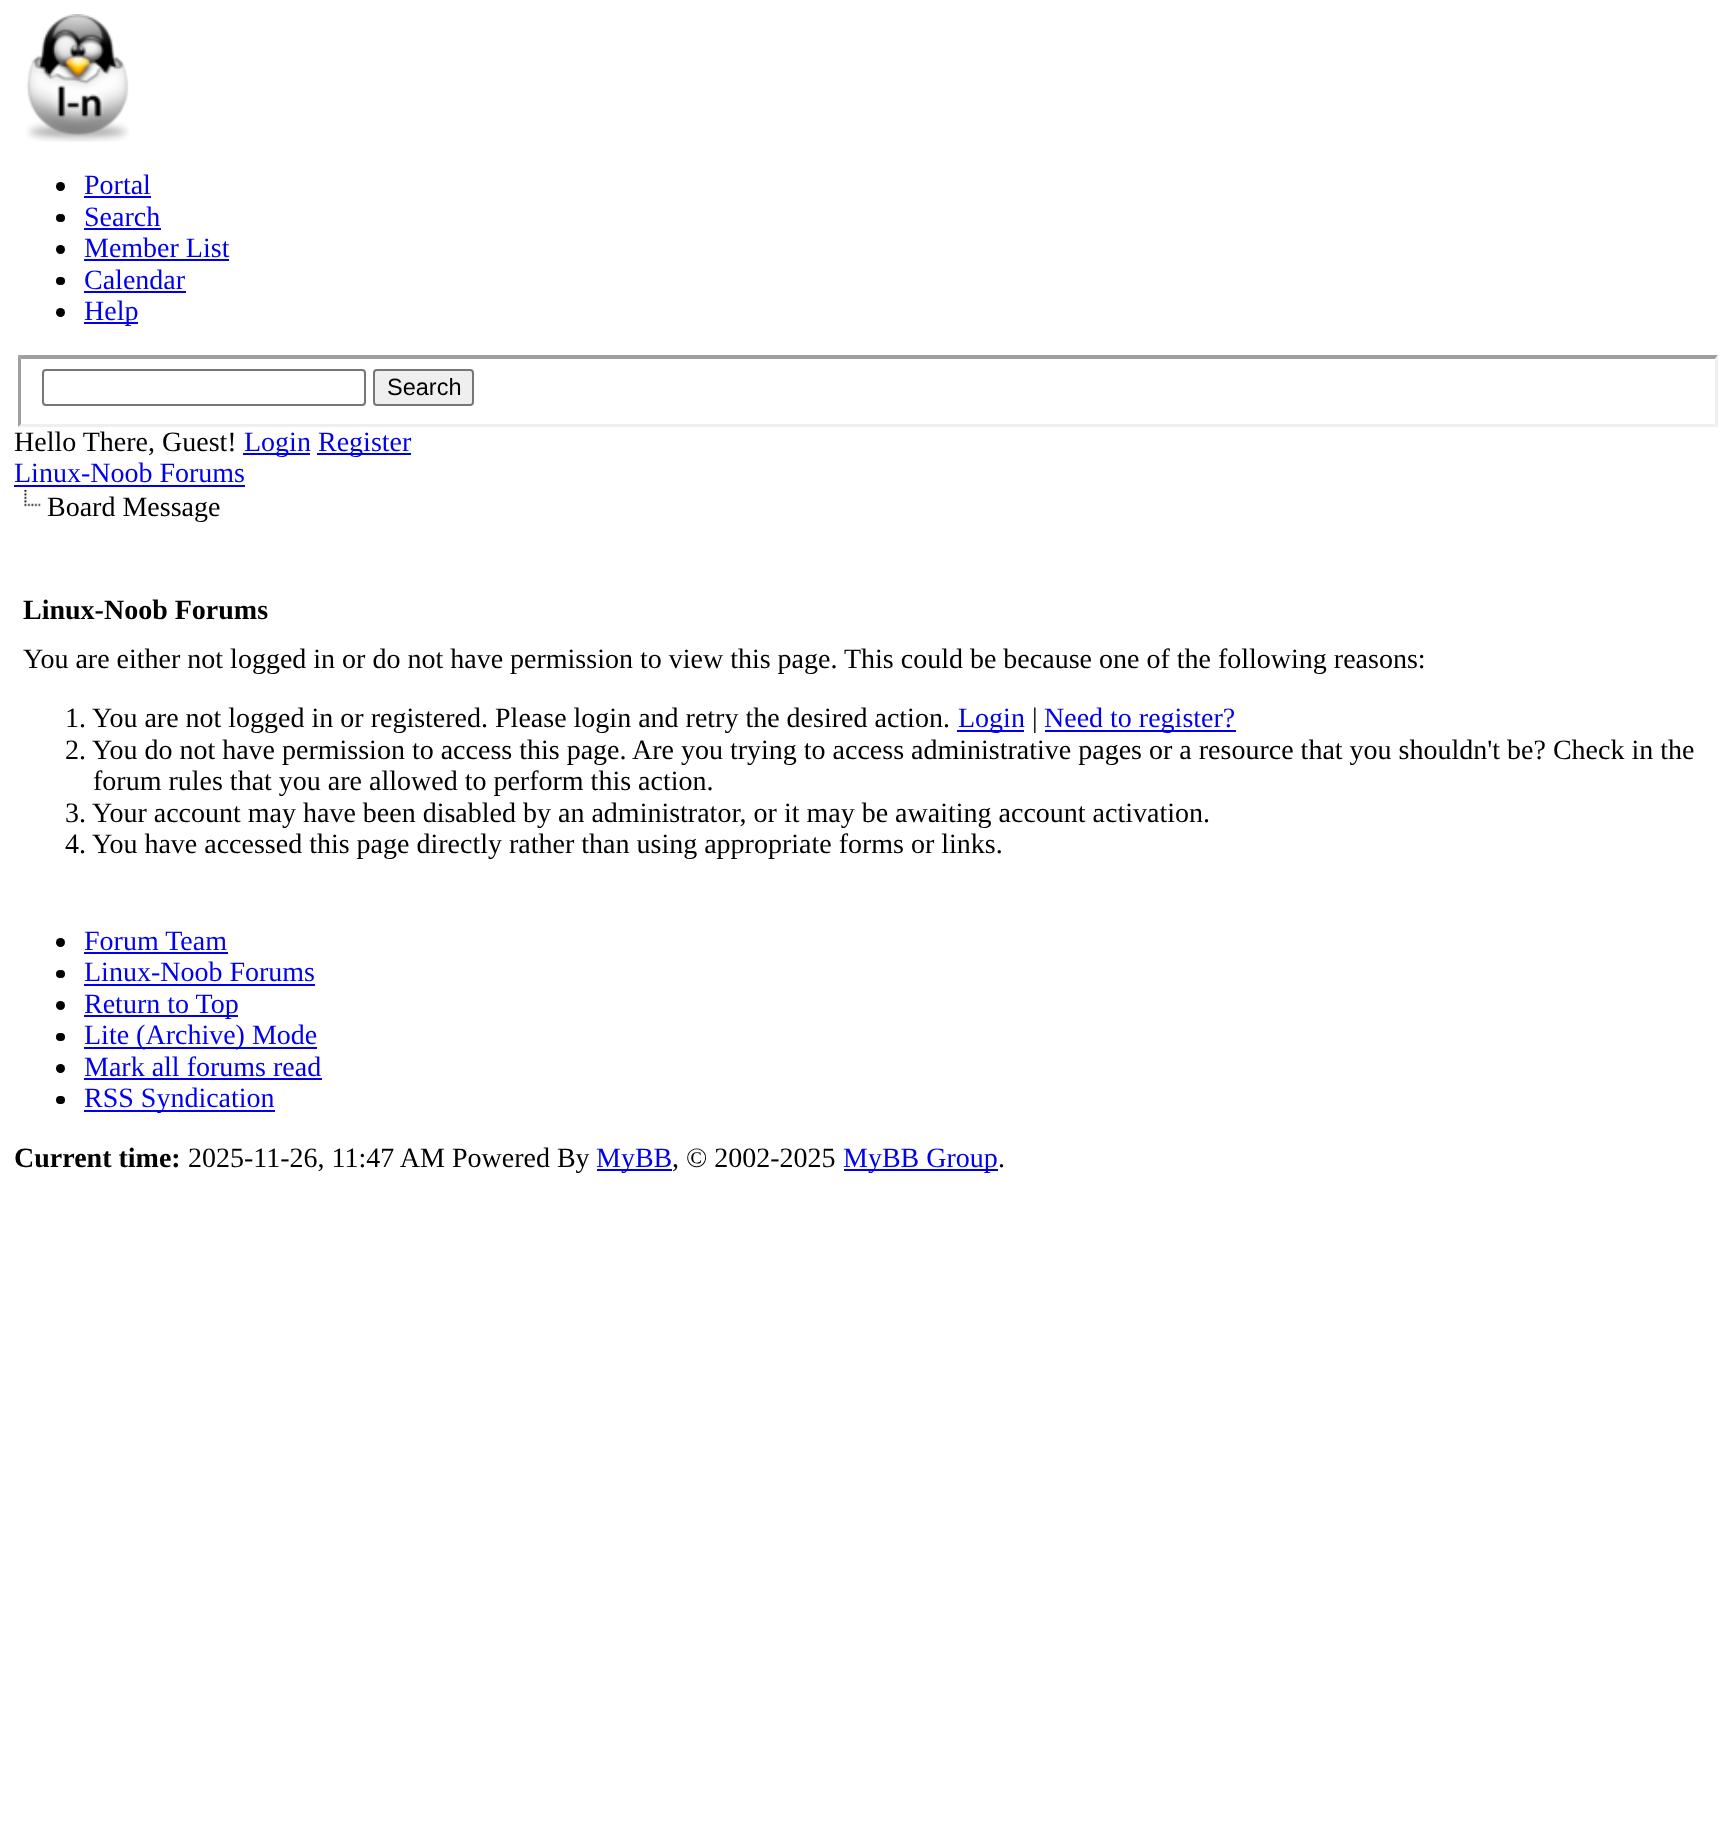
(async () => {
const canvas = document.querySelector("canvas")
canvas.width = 1736
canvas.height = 1830
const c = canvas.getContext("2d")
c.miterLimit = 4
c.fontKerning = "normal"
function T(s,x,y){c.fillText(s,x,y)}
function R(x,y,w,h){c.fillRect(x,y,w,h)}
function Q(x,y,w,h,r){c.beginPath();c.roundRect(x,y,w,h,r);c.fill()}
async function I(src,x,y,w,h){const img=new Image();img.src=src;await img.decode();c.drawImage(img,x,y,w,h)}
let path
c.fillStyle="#fff"
R(0,0,1736,1830)
await I("1.png",26,14,103,128)
c.fillStyle="#000"
c.beginPath()
c.arc(60.5,186.5,4.5,0,7)
c.fill()
c.font="28px Liberation Serif"
c.fillStyle="#00e"
T("Portal",84,194)
R(84,196,67,2)
c.fillStyle="#000"
Q(56,214,9,8,4)
c.fillStyle="#00e"
T("Search",84,226)
R(84,228,77,2)
c.fillStyle="#000"
c.beginPath()
c.arc(60.5,249.5,4.5,0,7)
c.fill()
c.fillStyle="#00e"
T("Member List",84,257)
R(84,259,145,2)
c.fillStyle="#000"
Q(56,277,9,8,4)
c.fillStyle="#00e"
T("Calendar",84,289)
R(84,291,102,2)
c.fillStyle="#000"
c.beginPath()
c.arc(60.5,312.5,4.5,0,7)
c.fill()
c.fillStyle="#00e"
R(84,322,54,2)
T("Help",84,320)
c.fillStyle="#9f9f9f"
path = new Path2D("M18 355h1700l-3 4h-1694z")
c.fill(path)
c.fillStyle="#efefef"
path = new Path2D("M1718 355v72l-3-3v-65z")
c.fill(path)
path = new Path2D("M1718 427h-1700l3-3h1694z")
c.fill(path)
c.fillStyle="#9f9f9f"
path = new Path2D("M18 427v-72l3 4v65z")
c.fill(path)
c.beginPath()
c.roundRect(43,370,322,35,3)
c.strokeStyle="#767676"
c.lineWidth=2
c.stroke()
c.fillStyle="#efefef"
c.beginPath()
c.roundRect(374,370,99,35,3)
c.fill()
c.stroke()
c.font="23.5px Liberation Sans"
c.fillStyle="#000"
T("Search",387,395)
c.font="28px Liberation Serif"
T("Hello There, Guest!",14,451)
c.fillStyle="#00e"
R(243,453,67,2)
T("Login",244,451)
R(317,453,94,2)
T("Register",318,451)
T("Linux-Noob Forums",14,482)
R(14,485,231,2)
await I("2.png",24,490,17,17)
c.fillStyle="#000"
T("Board Message",47,516)
c.font="bold 28px Liberation Serif"
T("Linux-Noob Forums",23,619)
c.font="28px Liberation Serif"
T("You are either not logged in or do not have permission to view this page. This could be because one of the following reasons:",23,668)
T("1. You are not logged in or registered. Please login and retry the desired action.",65,727)
c.fillStyle="#00e"
R(957,730,67,2)
T("Login",958,727)
c.fillStyle="#000"
T("|",1032,727)
c.fillStyle="#00e"
R(1045,730,191,2)
T("Need to register?",1044,727)
c.fillStyle="#000"
T("2. You do not have permission to access this page. Are you trying to access administrative pages or a resource that you shouldn't be? Check in the",65,759)
T("forum rules that you are allowed to perform this action.",93,790)
T("3. Your account may have been disabled by an administrator, or it may be awaiting account activation.",65,822)
T("4. You have accessed this page directly rather than using appropriate forms or links.",65,853)
c.beginPath()
c.arc(60.5,942.5,4.5,0,7)
c.fill()
c.fillStyle="#00e"
T("Forum Team",84,950)
R(84,952,144,2)
c.fillStyle="#000"
Q(56,970,9,8,4)
c.fillStyle="#00e"
T("Linux-Noob Forums",84,981)
R(84,984,231,2)
c.fillStyle="#000"
c.beginPath()
c.arc(60.5,1005.5,4.5,0,7)
c.fill()
c.fillStyle="#00e"
R(84,1015,154,2)
T("Return to Top",84,1013)
c.fillStyle="#000"
Q(56,1033,9,8,4)
c.fillStyle="#00e"
R(84,1047,233,2)
T("Lite (Archive) Mode",84,1044)
c.fillStyle="#000"
c.beginPath()
c.arc(60.5,1068.5,4.5,0,7)
c.fill()
c.fillStyle="#00e"
T("Mark all forums read",84,1076)
R(84,1078,238,2)
c.fillStyle="#000"
Q(56,1096,9,8,4)
c.fillStyle="#00e"
R(84,1110,191,2)
T("RSS Syndication",84,1107)
c.font="bold 28px Liberation Serif"
c.fillStyle="#000"
T("Current time:",14,1167)
c.font="28px Liberation Serif"
T("2025-11-26, 11:47 AM Powered By",188,1167)
c.fillStyle="#00e"
R(597,1169,75,2)
T("MyBB",596,1167)
c.fillStyle="#000"
T(", © 2002-2025",672,1167)
c.fillStyle="#00e"
R(844,1169,154,2)
T("MyBB Group",843,1167)
c.fillStyle="#000"
T(".",998,1167)
})()
